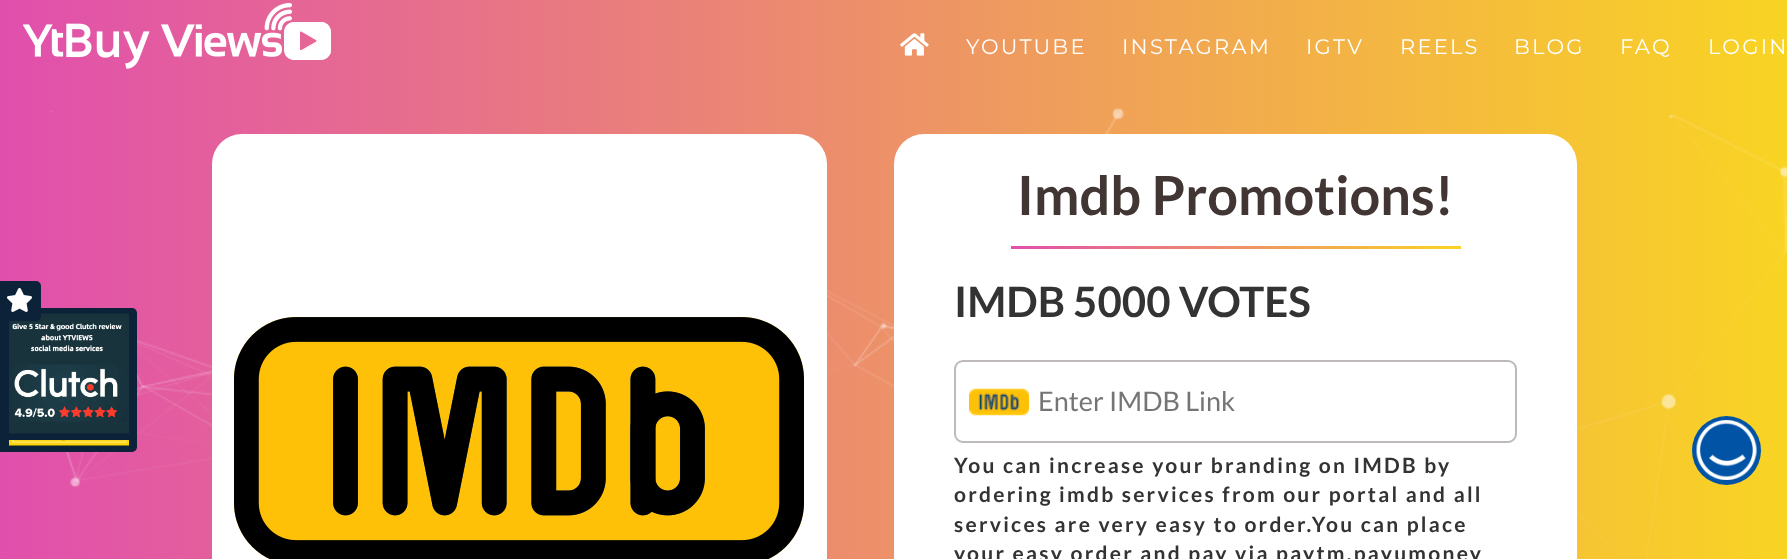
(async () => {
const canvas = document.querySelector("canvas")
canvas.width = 1787
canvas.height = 559
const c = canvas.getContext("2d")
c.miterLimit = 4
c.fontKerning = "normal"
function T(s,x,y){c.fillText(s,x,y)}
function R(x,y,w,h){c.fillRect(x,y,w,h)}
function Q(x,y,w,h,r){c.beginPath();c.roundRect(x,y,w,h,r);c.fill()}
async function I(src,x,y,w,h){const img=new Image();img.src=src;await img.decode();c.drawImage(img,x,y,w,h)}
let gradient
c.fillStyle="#fff"
R(0,0,1787,559)
gradient = c.createLinearGradient(0,44,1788,44)
gradient.addColorStop(0,"#e14fad")
gradient.addColorStop(1,"#f9d423")
c.fillStyle = gradient
R(0,0,1787,89)
await I("1.png",23,3,308,66)
await I("2.png",900,33,29,23)
c.letterSpacing="2.25px"
c.font="21px Montserrat"
c.fillStyle="#fff"
T("YOUTUBE",966,54)
T("INSTAGRAM",1122,54)
T("IGTV",1306,54)
T("REELS",1400,54)
T("BLOG",1514,54)
T("FAQ",1620,54)
T("LOGIN",1708,54)
gradient = c.createLinearGradient(0,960,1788,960)
gradient.addColorStop(0,"#e14fad")
gradient.addColorStop(1,"#f9d423")
c.fillStyle = gradient
R(0,89,1787,470)
await I("4.png",49,107,1738,452)
c.fillStyle="#0b2239"
c.beginPath()
c.roundRect(0,372,137,80,[0,5,5,0])
c.fill()
c.beginPath()
c.roundRect(0,308,137,132,[0,5,5,0])
c.fill()
await I("7.png",9,313,120,121)
c.beginPath()
c.roundRect(0,281,41,40,[0,5,5,0])
c.fill()
await I("3.png",7,288,25,24)
c.fillStyle="#fff"
Q(212,134,615,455,30)
await I("5.png",234,317,570,242)
Q(894,134,683,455,30)
c.letterSpacing="0px"
c.font="bold 54px Lato"
c.fillStyle="#413633"
T("Imdb Promotions!",1017,215)
gradient = c.createLinearGradient(1011,248,1461,248)
gradient.addColorStop(0,"#e14fad")
gradient.addColorStop(1,"#f9d423")
c.fillStyle = gradient
R(1011,246,450,3)
c.font="bold 42px Lato"
c.fillStyle="#333"
T("IMDB 5000 VOTES",954,317)
c.beginPath()
c.roundRect(955,361,561,81,8)
c.strokeStyle="#bebaba"
c.lineWidth=2
c.stroke()
await I("6.png",969,388,60,28)
c.font="27px Lato"
c.fillStyle="#757575"
T("Enter IMDB Link",1038,411)
c.letterSpacing="2.25px"
c.font="bold 21px Lato"
c.fillStyle="#333"
T("You can increase your branding on IMDB by",954,473)
T("ordering imdb services from our portal and all",954,502)
T("services are very easy to order.You can place",954,532)
T("your easy order and pay via paytm,payumoney",954,561)
await I("8.png",9,440,120,6)
c.fillStyle="#0053a5"
c.beginPath()
c.arc(1726.5,450.5,34.5,0,7)
c.fill()
await I("9.png",1696,420,61,60)
})()
